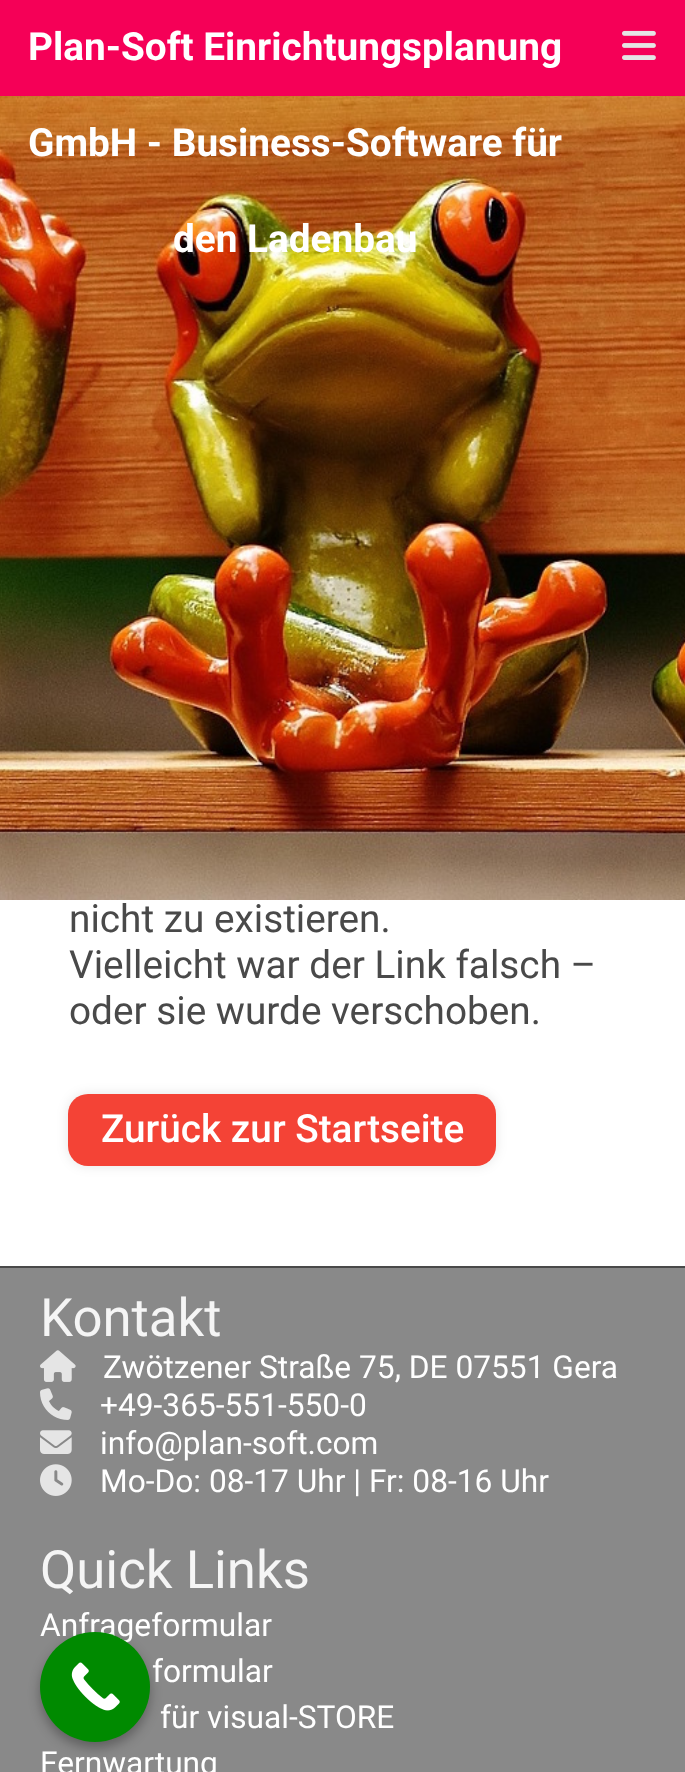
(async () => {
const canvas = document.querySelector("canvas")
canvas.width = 685
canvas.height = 1772
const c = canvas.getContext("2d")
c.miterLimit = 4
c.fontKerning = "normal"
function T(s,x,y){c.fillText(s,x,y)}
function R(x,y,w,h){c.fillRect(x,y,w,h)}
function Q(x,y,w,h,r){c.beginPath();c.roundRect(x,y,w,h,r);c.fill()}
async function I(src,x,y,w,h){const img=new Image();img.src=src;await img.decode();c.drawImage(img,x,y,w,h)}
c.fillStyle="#fff"
R(0,0,685,1772)
c.fillStyle="#f50057"
R(0,0,685,96)
c.font="bold 38.75px Roboto"
c.fillStyle="#fff"
T("Plan-Soft Einrichtungsplanung",28,60)
await I("2.png",0,96,685,804)
T("GmbH - Business-Software für",28,156)
T("den Ladenbau",173,252)
await I("1.png",622,30,34,30)
c.font="38.75px Roboto"
c.fillStyle="#494949"
T("nicht zu existieren.",69,932)
T("Vielleicht war der Link falsch –",69,978)
T("oder sie wurde verschoben.",69,1024)
c.fillStyle="#0000001a"
c.filter="blur(6px)"
c.beginPath()
c.roundRect(68,1094,428,72,20)
c.fill()
c.filter="none"
c.fillStyle="#f44336"
Q(68,1094,428,72,20)
c.font="500 38.75px Roboto"
c.fillStyle="#fff"
T("Zurück zur Startseite",101,1142)
c.fillStyle="#898989"
R(0,1268,685,504)
c.fillStyle="#494949"
R(0,1266,685,2)
c.font="52.75px Roboto"
c.fillStyle="#f5f5f5"
T("Kontakt",40,1336)
await I("3.png",40,1350,36,32)
c.font="31.7px Roboto"
c.fillStyle="#fff"
T("Zwötzener Straße 75, DE 07551 Gera",103,1378)
await I("4.png",40,1388,32,32)
T("+49-365-551-550-0",100,1416)
await I("5.png",40,1430,32,24)
T("info@plan-soft.com",100,1454)
await I("6.png",40,1464,32,32)
T("Mo-Do: 08-17 Uhr | Fr: 08-16 Uhr",100,1492)
c.font="52.75px Roboto"
c.fillStyle="#f5f5f5"
T("Quick Links",40,1588)
c.font="31.7px Roboto"
c.fillStyle="#fff"
T("Anfrageformular",40,1636)
T("formular",152,1682)
T("für visual-STORE",160,1728)
T("Fernwartung",40,1774)
c.fillStyle="#0000004d"
c.filter="blur(6px)"
c.beginPath()
c.roundRect(40,1638,110,110,55)
c.fill()
c.filter="none"
c.fillStyle="#008a00"
c.beginPath()
c.arc(95,1687,55,0,7)
c.fill()
await I("7.png",71,1662,49,49)
})()
